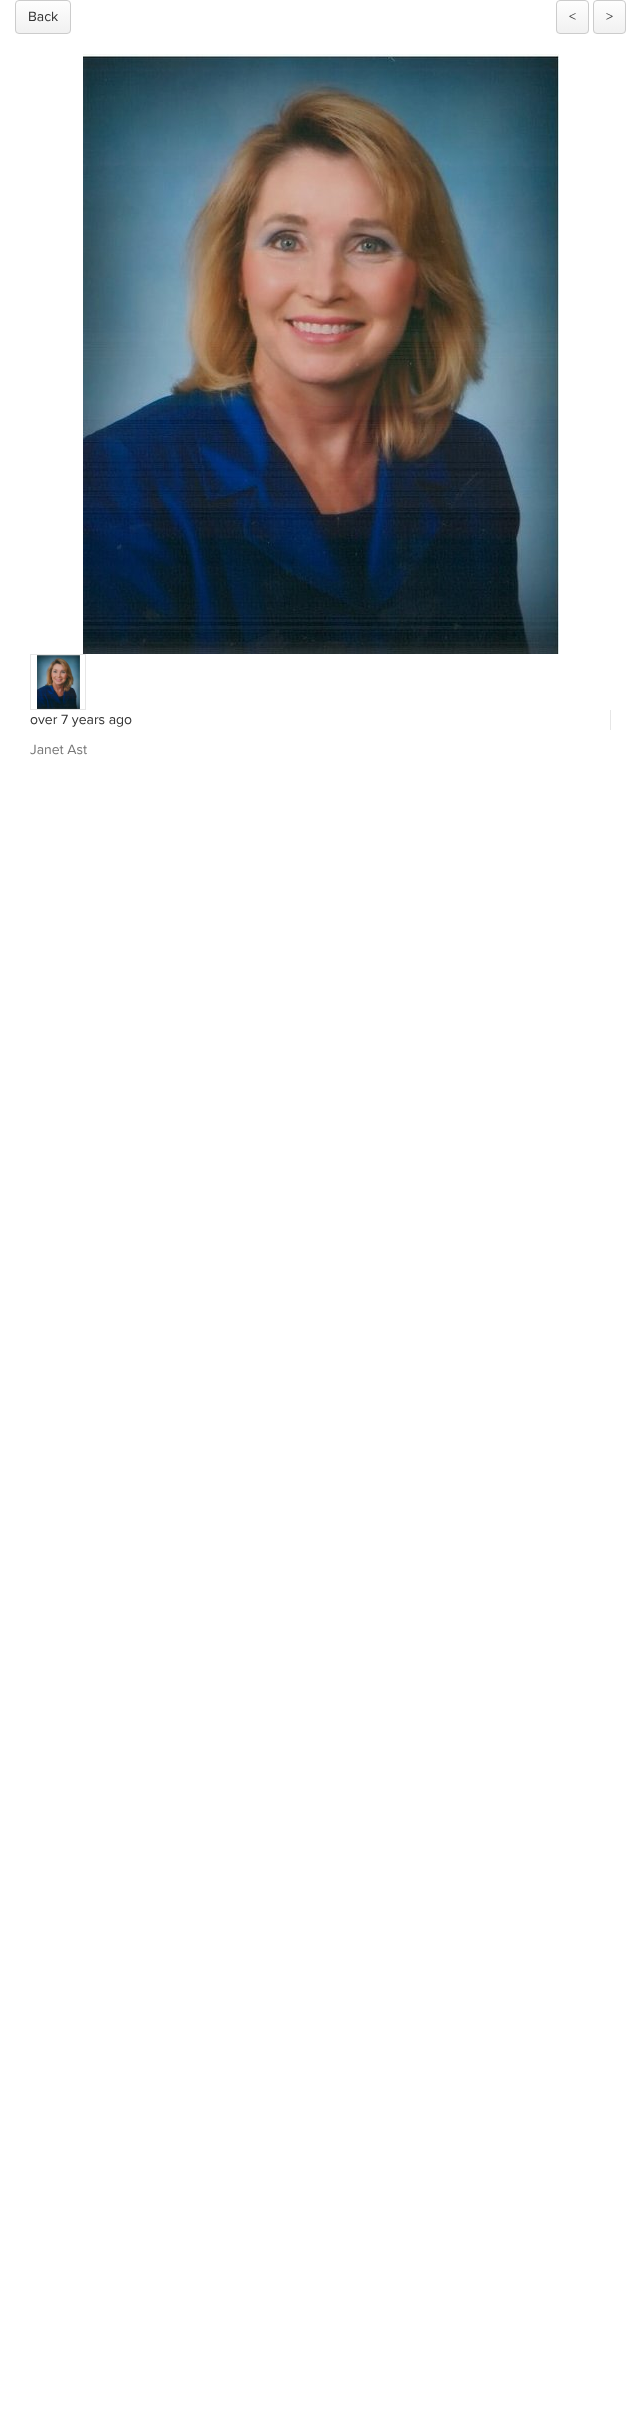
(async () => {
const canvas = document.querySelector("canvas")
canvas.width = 641
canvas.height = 2430
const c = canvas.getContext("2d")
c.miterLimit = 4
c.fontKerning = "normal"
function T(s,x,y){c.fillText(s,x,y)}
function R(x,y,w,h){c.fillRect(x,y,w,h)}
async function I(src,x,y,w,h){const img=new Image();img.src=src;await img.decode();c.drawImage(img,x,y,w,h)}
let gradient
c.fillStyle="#fff"
R(0,0,641,2430)
c.save()
c.beginPath()
c.roundRect(15,0,56,34,4)
c.clip()
gradient = c.createLinearGradient(43,1,43,33)
gradient.addColorStop(0,"#fefefe")
gradient.addColorStop(1,"#f1f1f1")
c.fillStyle = gradient
R(15,1,56,32)
c.restore()
c.beginPath()
c.roundRect(15.5,.5,55,33,3.5)
c.strokeStyle="#ccc"
c.stroke()
c.font="14px Proxima Nova"
c.fillStyle="#333"
T("Back",28,21)
c.save()
c.beginPath()
c.roundRect(556,0,33,34,4)
c.clip()
gradient = c.createLinearGradient(573,1,573,33)
gradient.addColorStop(0,"#fefefe")
gradient.addColorStop(1,"#f1f1f1")
c.fillStyle = gradient
R(556,1,33,32)
c.restore()
c.beginPath()
c.roundRect(556.5,.5,32,33,3.5)
c.stroke()
T("<",569,21)
c.save()
c.beginPath()
c.roundRect(593,0,33,34,4)
c.clip()
gradient = c.createLinearGradient(610,1,610,33)
gradient.addColorStop(0,"#fefefe")
gradient.addColorStop(1,"#f1f1f1")
c.fillStyle = gradient
R(593,1,33,32)
c.restore()
c.beginPath()
c.roundRect(593.5,.5,32,33,3.5)
c.stroke()
T(">",606,21)
await I("1.png",83,54,476,600)
c.strokeStyle="#e6e6e6"
c.strokeRect(30.5,654.5,55,55)
await I("2.png",37,655,43,54)
c.fillStyle="#e6e6e6"
R(610,710,1,20)
c.fillStyle="#333"
T("over 7 years ago",30,724)
c.fillStyle="#777"
T("Janet Ast",30,754)
})()
